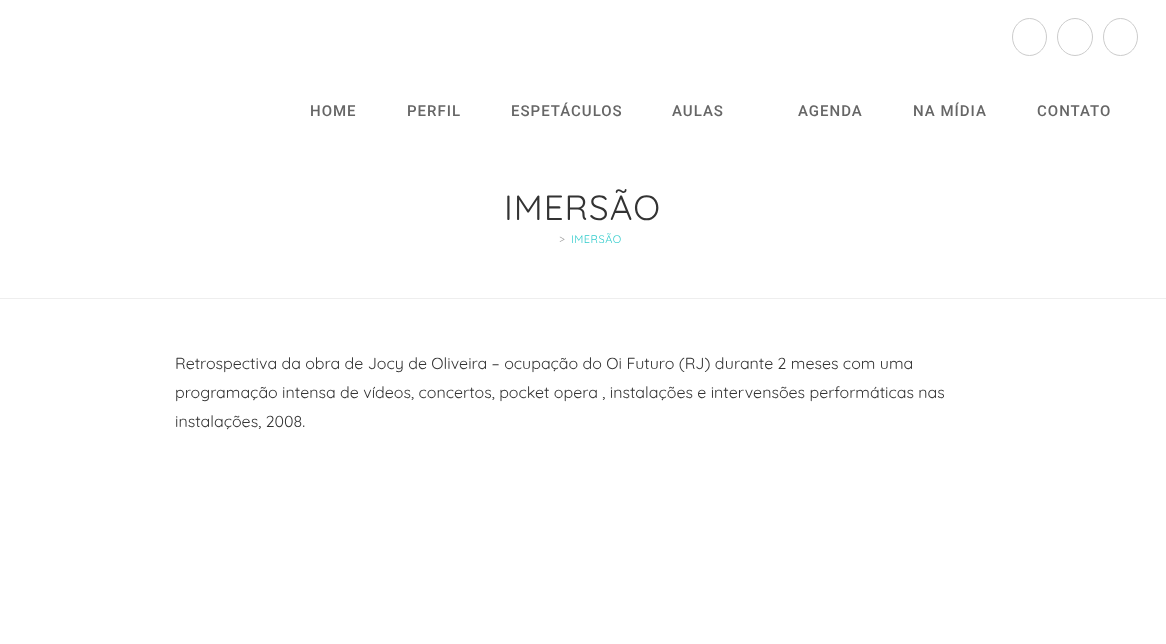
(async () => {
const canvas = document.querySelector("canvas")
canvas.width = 1166
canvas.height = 644
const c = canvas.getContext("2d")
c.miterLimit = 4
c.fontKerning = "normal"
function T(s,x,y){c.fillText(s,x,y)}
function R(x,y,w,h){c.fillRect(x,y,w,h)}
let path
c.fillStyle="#fff"
R(0,0,1166,644)
path = new Path2D("M1029.5 18.5c9.5 0 17 8.5 17 18.5c0 10-7.5 18.5-17 18.5c-9.5 0-17-8.5-17-18.5c0-10 7.5-18.5 17-18.5z")
c.strokeStyle="#ccc"
c.stroke(path)
path = new Path2D("M1075 18.5c9.5 0 17.5 8.5 17.5 18.5c0 10-8 18.5-17.5 18.5c-9.5 0-17.5-8.5-17.5-18.5c0-10 8-18.5 17.5-18.5z")
c.stroke(path)
path = new Path2D("M1120.5 18.5c9.5 0 17 8.5 17 18.5c0 10-7.5 18.5-17 18.5c-9.5 0-17-8.5-17-18.5c0-10 7.5-18.5 17-18.5z")
c.stroke(path)
c.letterSpacing="1px"
c.font="500 15px Roboto"
c.fillStyle="#666"
T("HOME",310,116)
T("PERFIL",407,116)
T("ESPETÁCULOS",511,116)
T("AULAS",672,116)
T("AGENDA",798,116)
T("NA MÍDIA",913,116)
T("CONTATO",1037,116)
c.fillStyle="#eee"
R(0,298,1166,1)
c.font="35px Quicksand"
c.fillStyle="#333"
T("IMERSÃO",504,220)
c.letterSpacing="0.5px"
c.font="11px Quicksand"
c.fillStyle="#999"
T(">",559,243)
c.fillStyle="#3cc"
T("IMERSÃO",571,243)
c.letterSpacing="0px"
c.font="16px Quicksand"
c.fillStyle="#333"
T("Retrospectiva da obra de Jocy de Oliveira – ocupação do Oi Futuro (RJ) durante 2 meses com uma",175,369)
T("programação intensa de vídeos, concertos, pocket opera , instalações e intervensões performáticas nas",175,398)
T("instalações, 2008.",175,427)
})()
